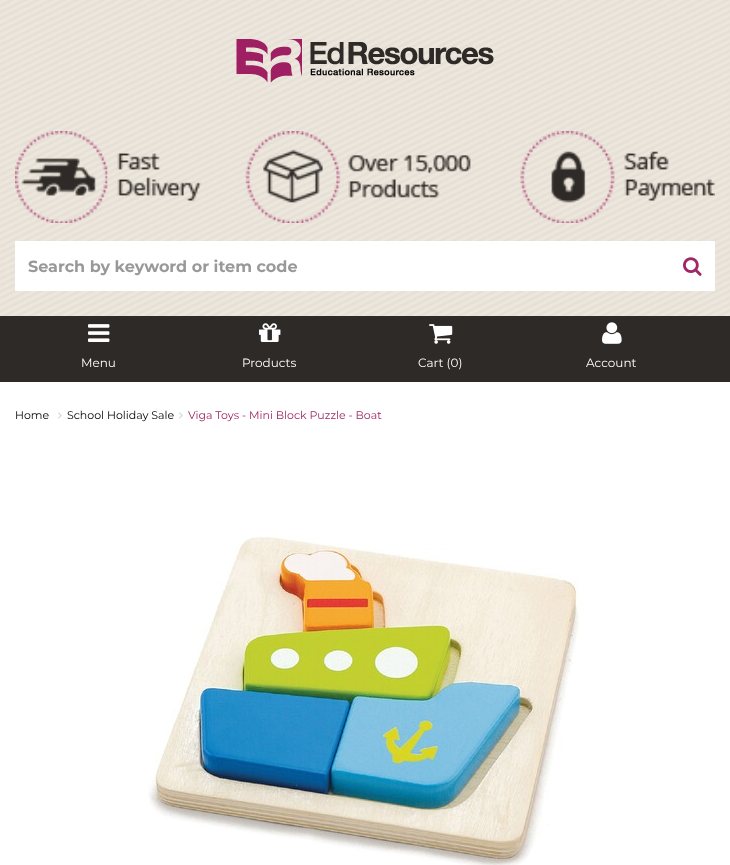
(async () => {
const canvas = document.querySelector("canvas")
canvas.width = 730
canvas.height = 865
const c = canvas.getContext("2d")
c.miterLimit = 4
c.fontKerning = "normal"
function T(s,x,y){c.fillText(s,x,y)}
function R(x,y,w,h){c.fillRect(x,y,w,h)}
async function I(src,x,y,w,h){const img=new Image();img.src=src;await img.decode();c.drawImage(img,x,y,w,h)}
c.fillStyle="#fff"
R(0,0,730,865)
await I("1.png",0,0,730,316)
await I("2.png",236,39,258,44)
await I("3.png",15,131,700,92)
R(15,241,700,50)
c.font="bold 16px Montserrat"
c.fillStyle="#999"
T("Search by keyword or item code",28,272)
await I("4.png",683,257,19,19)
c.fillStyle="#2e2a27"
R(0,316,730,66)
await I("5.png",88,324,22,18)
c.font="12px Montserrat"
c.fillStyle="#fff"
T("Menu",81,367)
await I("6.png",259,323,22,19)
T("Products",242,367)
await I("7.png",429,324,24,20)
T("Cart (0)",418,367)
await I("8.png",602,322,20,22)
T("Account",586,367)
c.font="11px Montserrat"
c.fillStyle="#000"
T("Home",15,419)
await I("9.png",58,412,4,7)
T("School Holiday Sale",67,419)
await I("9.png",179,412,4,7)
c.fillStyle="#a02665"
T("Viga Toys - Mini Block Puzzle - Boat",188,419)
await I("10.png",147,535,432,330)
})()
